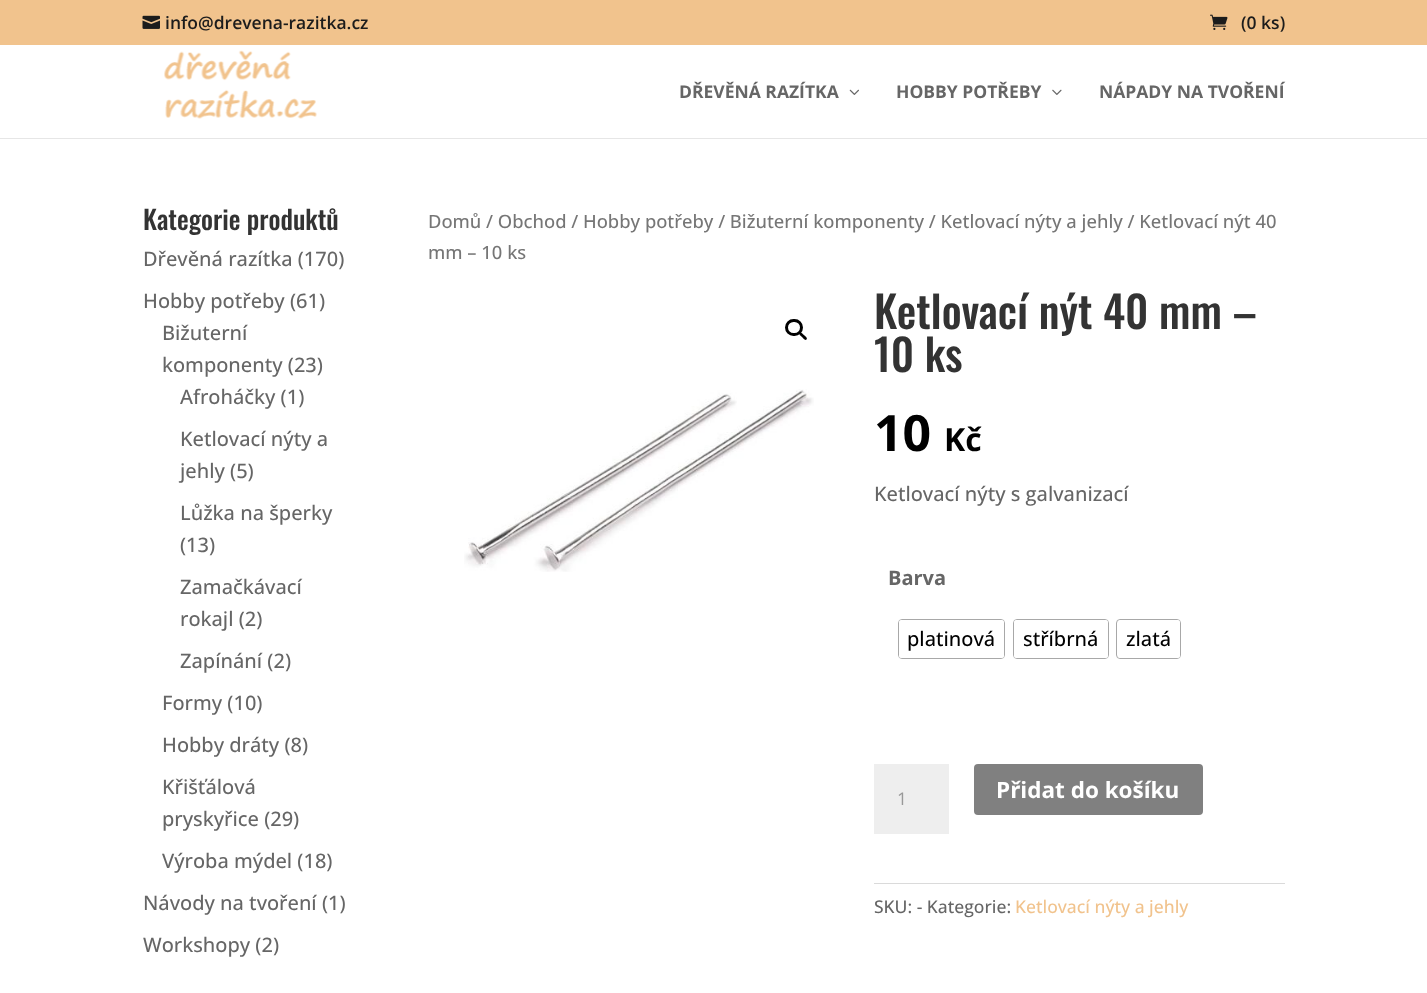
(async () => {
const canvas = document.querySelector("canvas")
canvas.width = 1427
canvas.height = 993
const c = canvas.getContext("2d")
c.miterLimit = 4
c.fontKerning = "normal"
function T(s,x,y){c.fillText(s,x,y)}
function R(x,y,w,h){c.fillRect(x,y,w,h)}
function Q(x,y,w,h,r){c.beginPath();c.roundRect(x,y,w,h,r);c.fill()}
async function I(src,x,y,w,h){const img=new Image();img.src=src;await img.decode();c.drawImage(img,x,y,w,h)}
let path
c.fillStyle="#fff"
R(0,0,1427,993)
c.fillStyle="#f1c38d"
R(0,0,1427,45)
await I("1.png",142,15,18,14)
c.font="600 17.5px Open Sans"
c.fillStyle="#1c1c1c"
T("info@drevena-razitka.cz",165,29)
await I("2.png",1210,14,18,16)
T("(0 ks)",1241,29)
c.fillStyle="#e6e6e6"
path = new Path2D("M0 138v1h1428v-93v92z")
c.fill(path)
await I("3.png",164,50,153,69)
c.font="bold 17.5px Open Sans"
c.fillStyle="#666"
T("DŘEVĚNÁ RAZÍTKA",679,98)
await I("4.png",849,89,10,6)
T("HOBBY POTŘEBY",896,98)
await I("5.png",1052,89,10,6)
T("NÁPADY NA TVOŘENÍ",1099,98)
c.font="500 26.25px Oswald"
c.fillStyle="#333"
T("Kategorie produktů",143,230)
c.font="500 20px Open Sans"
c.fillStyle="#666"
T("Dřevěná razítka (170)",143,266)
T("Hobby potřeby (61)",143,308)
T("Bižuterní",162,340)
T("komponenty (23)",162,372)
T("Afroháčky (1)",180,404)
T("Ketlovací nýty a",180,446)
T("jehly (5)",180,478)
T("Lůžka na šperky",180,520)
T("(13)",180,552)
T("Zamačkávací",180,594)
T("rokajl (2)",180,626)
T("Zapínání (2)",180,668)
T("Formy (10)",162,710)
T("Hobby dráty (8)",162,752)
T("Křišťálová",162,794)
T("pryskyřice (29)",162,826)
T("Výroba mýdel (18)",162,868)
T("Návody na tvoření (1)",143,910)
T("Workshopy (2)",143,952)
c.font="500 18.4px Open Sans"
c.fillStyle="#767676"
T("Domů / Obchod / Hobby potřeby / Bižuterní komponenty / Ketlovací nýty a jehly / Ketlovací nýt 40",428,228)
T("mm – 10 ks",428,259)
c.beginPath()
c.roundRect(786.5,320.5,15,14,7)
c.strokeStyle="#000"
c.lineWidth=3
c.stroke()
c.fillStyle="#000"
path = new Path2D("M799.5 332.5c1.5-1.5 3.5 2 4.5 2.5c1 1 4 3 2.5 4.5c-1.5 1.5-3.5-1.5-4.5-2.5c-.5-.5-4-3-2.5-4.5z")
c.fill(path)
await I("6.png",464,389,350,183)
c.font="500 43.75px Oswald"
c.fillStyle="#333"
T("Ketlovací nýt 40 mm –",874,329)
T("10 ks",874,372)
c.font="bold 50px Open Sans"
c.fillStyle="#000"
T("10",874,451)
c.font="bold 32px Open Sans"
T("Kč",944,451)
c.font="500 20px Open Sans"
c.fillStyle="#666"
T("Ketlovací nýty s galvanizací",874,501)
c.font="bold 20px Open Sans"
T("Barva",888,585)
c.beginPath()
c.roundRect(898.5,619.5,106,39,3.5)
c.strokeStyle="#a8a8a8"
c.lineWidth=1
c.stroke()
c.fillStyle="#fff"
Q(899,620,105,38,2.5)
c.font="500 20px Open Sans"
c.fillStyle="#000"
T("platinová",907,646)
c.beginPath()
c.roundRect(1013.5,619.5,95,39,3.5)
c.stroke()
c.fillStyle="#fff"
Q(1014,620,94,38,2.5)
c.fillStyle="#000"
T("stříbrná",1023,646)
c.beginPath()
c.roundRect(1116.5,619.5,64,39,3.5)
c.stroke()
c.fillStyle="#fff"
Q(1118,620,62,38,2.5)
c.fillStyle="#000"
T("zlatá",1126,646)
c.fillStyle="#eee"
R(874,764,75,70)
c.font="17.5px Open Sans"
c.fillStyle="#999"
T("1",897,805)
c.fillStyle="#808080"
Q(974,764,229,51,4)
c.font="bold 22.5px Open Sans"
c.fillStyle="#fff"
T("Přidat do košíku",996,798)
c.fillStyle="#dadada"
R(874,883,411,1)
c.font="500 17.5px Open Sans"
c.fillStyle="#666"
T("SKU: - Kategorie:",874,913)
c.fillStyle="#f1c38d"
T("Ketlovací nýty a jehly",1015,913)
})()
